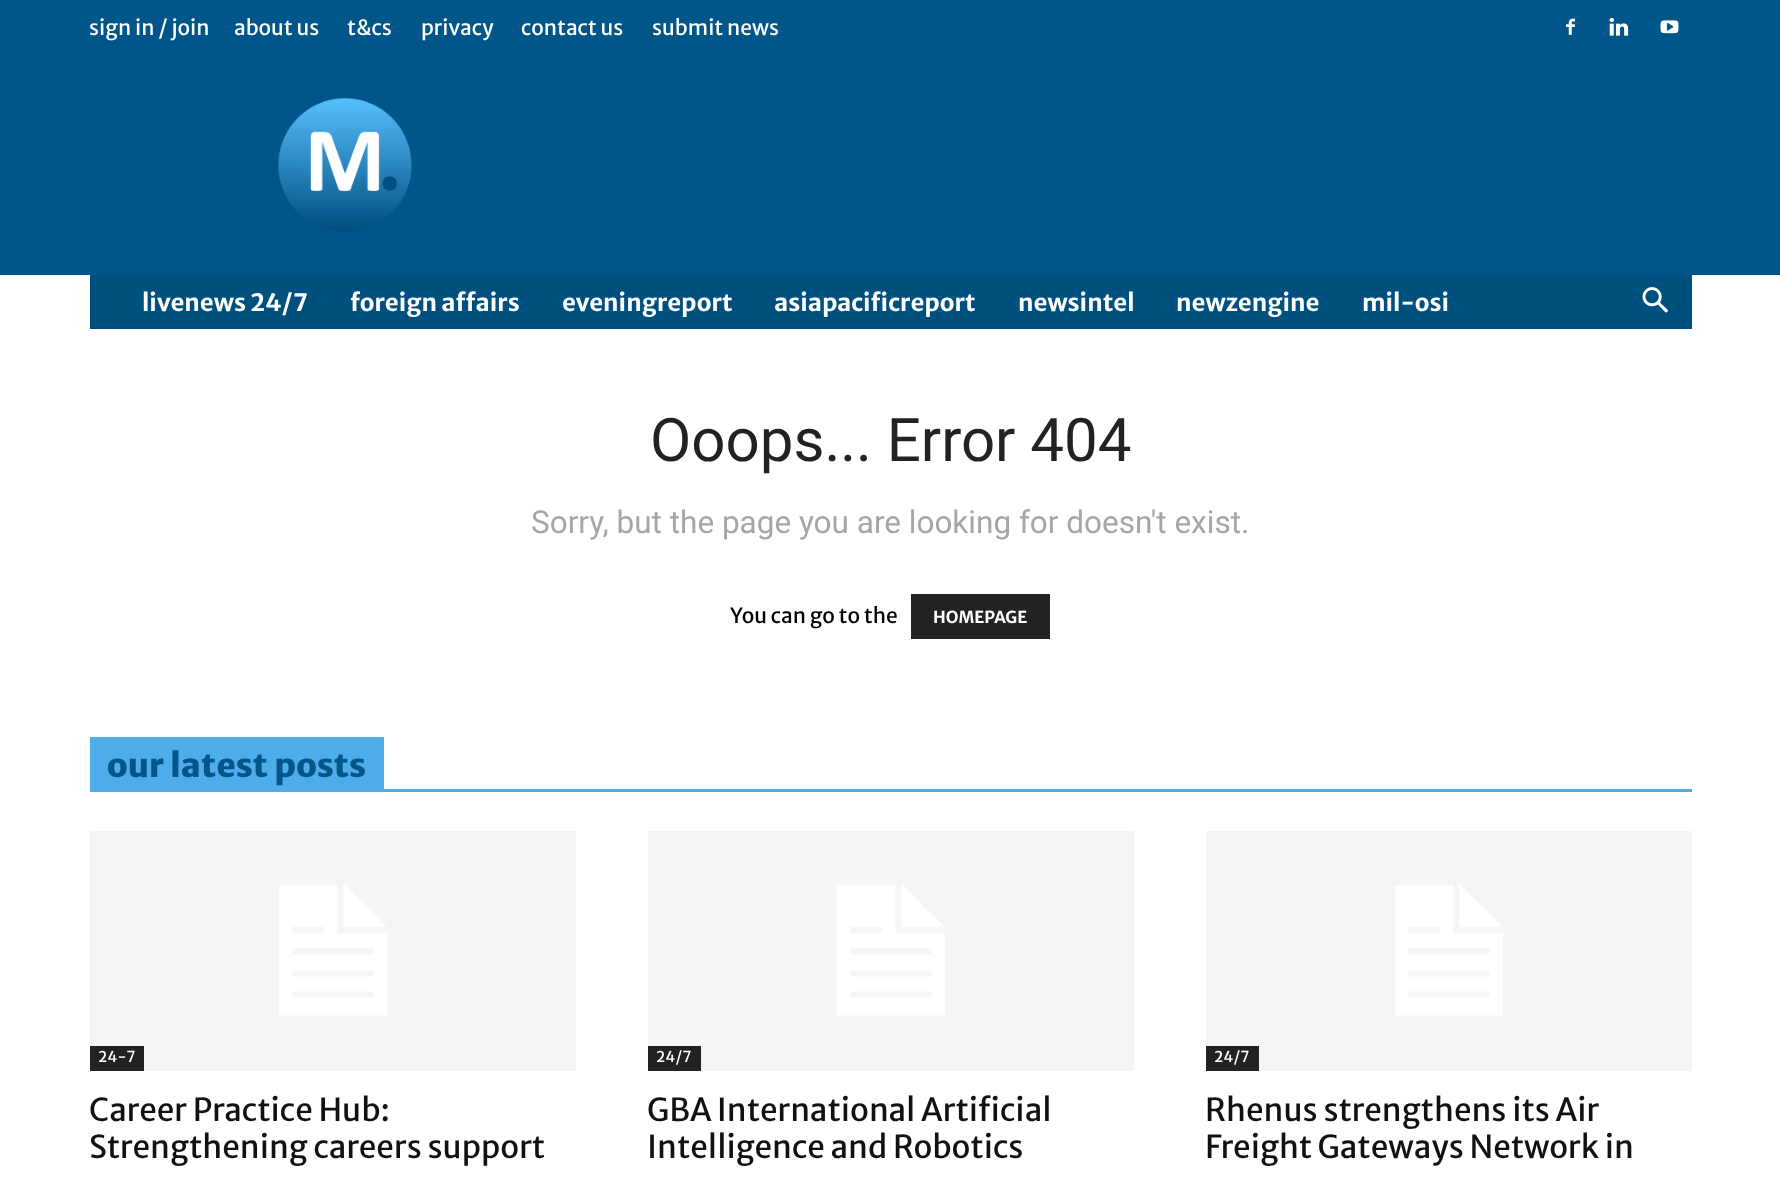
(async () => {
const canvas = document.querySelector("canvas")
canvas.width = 1780
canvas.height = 1180
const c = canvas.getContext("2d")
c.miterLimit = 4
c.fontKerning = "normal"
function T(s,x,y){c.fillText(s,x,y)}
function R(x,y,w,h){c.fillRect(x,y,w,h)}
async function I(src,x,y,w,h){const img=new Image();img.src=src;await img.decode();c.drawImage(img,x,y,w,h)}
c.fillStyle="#fff"
R(0,0,1780,1180)
c.fillStyle="#005689"
R(0,0,1780,275)
await I("1.png",278,97,134,135)
c.font="21px Merriweather Sans"
c.fillStyle="#fff"
T("sign in / join",89,35)
T("about us",234,35)
T("t&cs",347,35)
T("privacy",421,35)
T("contact us",521,35)
T("submit news",652,35)
await I("2.png",1566,18,9,17)
await I("3.png",1609,17,20,19)
await I("4.png",1660,20,19,14)
c.fillStyle="#00507f"
R(90,275,1602,54)
c.font="bold 24px Merriweather Sans"
c.fillStyle="#fff"
T("livenews 24/7",142,311)
T("foreign affairs",350,311)
T("eveningreport",562,311)
T("asiapacificreport",774,311)
T("newsintel",1018,311)
T("newzengine",1176,311)
T("mil-osi",1362,311)
await I("5.png",1642,287,26,26)
c.font="60px Roboto"
c.fillStyle="#222"
T("Ooops... Error 404",650,461)
c.font="31.5px Roboto"
c.fillStyle="#a6a6a6"
T("Sorry, but the page you are looking for doesn't exist.",531,533)
c.font="21px Merriweather Sans"
c.fillStyle="#000"
T("You can go to the",730,623)
c.fillStyle="#222"
R(911,594,139,45)
c.font="bold 16.5px Merriweather Sans"
c.fillStyle="#fff"
T("HOMEPAGE",933,623)
c.fillStyle="#4facea"
R(90,789,1602,3)
R(90,737,294,52)
c.font="800 33px Merriweather Sans"
c.fillStyle="#005689"
T("our latest posts",107,777)
await I("6.png",90,831,486,240)
c.fillStyle="#222"
R(90,1046,54,25)
c.font="15px Merriweather Sans"
c.fillStyle="#fff"
T("24-7",98,1062)
c.font="31.5px Merriweather Sans"
c.fillStyle="#111"
T("Career Practice Hub:",89,1121)
T("Strengthening careers support",89,1158)
await I("6.png",648,831,486,240)
c.fillStyle="#222"
R(648,1046,53,25)
c.font="15px Merriweather Sans"
c.fillStyle="#fff"
T("24/7",656,1062)
c.font="31.5px Merriweather Sans"
c.fillStyle="#111"
T("GBA International Artificial",647,1121)
T("Intelligence and Robotics",647,1158)
await I("6.png",1206,831,486,240)
c.fillStyle="#222"
R(1206,1046,53,25)
c.font="15px Merriweather Sans"
c.fillStyle="#fff"
T("24/7",1214,1062)
c.font="31.5px Merriweather Sans"
c.fillStyle="#111"
T("Rhenus strengthens its Air",1205,1121)
T("Freight Gateways Network in",1205,1158)
})()
